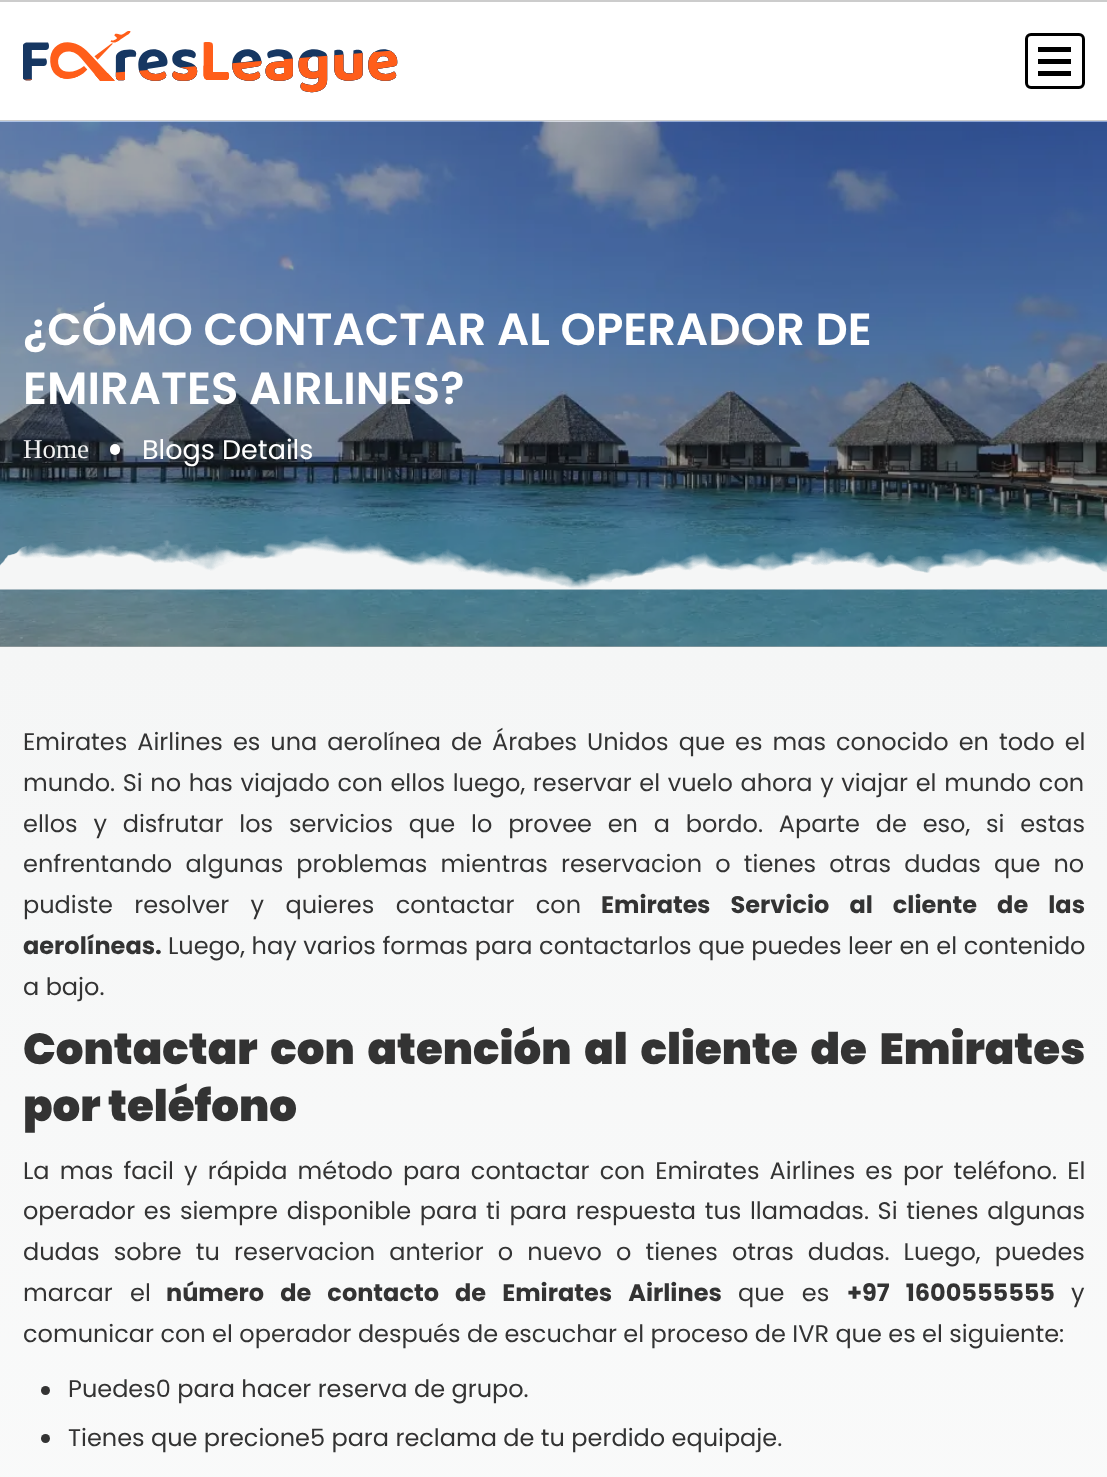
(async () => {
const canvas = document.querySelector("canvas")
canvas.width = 1107
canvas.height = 1477
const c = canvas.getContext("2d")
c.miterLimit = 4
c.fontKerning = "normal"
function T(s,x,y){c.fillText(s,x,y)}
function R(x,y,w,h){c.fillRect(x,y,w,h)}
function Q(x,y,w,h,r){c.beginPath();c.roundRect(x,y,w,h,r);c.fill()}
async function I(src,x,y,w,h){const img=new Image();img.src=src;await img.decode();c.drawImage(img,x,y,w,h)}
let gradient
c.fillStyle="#fff"
R(0,0,1107,1477)
c.fillStyle="#a8a8a8"
R(0,646,1107,1)
c.fillStyle="#ccc"
R(0,0,1107,2)
R(0,120,1107,2)
await I("1.png",23,31,375,62)
c.beginPath()
c.roundRect(1026.5,34.5,57,53,4.5)
c.strokeStyle="#000"
c.lineWidth=3
c.stroke()
c.fillStyle="#000"
R(1038,47,33,5)
R(1038,59,33,5)
R(1038,71,33,5)
await I("2.png",0,121,1107,526)
c.font="600 45px Poppins"
c.fillStyle="#fff"
T("¿CÓMO CONTACTAR AL OPERADOR DE",23,345)
T("EMIRATES AIRLINES?",23,404)
c.font="27px Liberation Serif"
c.fillStyle="#f2f2f2"
T("Home",23,458)
c.fillStyle="#212529"
c.filter="blur(2px)"
c.beginPath()
c.roundRect(110,444,10,11,5)
c.fill()
c.filter="none"
c.fillStyle="#fff"
Q(110,444,10,11,5)
c.font="27px Poppins"
T("Blogs Details",142,459)
await I("3.png",0,535,1107,55)
gradient = c.createLinearGradient(554,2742,554,647)
gradient.addColorStop(0,"#fff")
gradient.addColorStop(1,"#f5f6f6")
c.fillStyle = gradient
R(0,647,1107,830)
c.wordSpacing="3.6px"
c.font="24px Poppins"
c.fillStyle="#333"
T("Emirates Airlines es una aerolínea de Árabes Unidos que es mas conocido en todo el",23,750)
c.wordSpacing="1.25px"
T("mundo. Si no has viajado con ellos luego, reservar el vuelo ahora y viajar el mundo con",23,791)
c.wordSpacing="9.4px"
T("ellos y disfrutar los servicios que lo provee en a bordo. Aparte de eso, si estas",23,832)
c.wordSpacing="6.75px"
T("enfrentando algunas problemas mientras reservacion o tienes otras dudas que no",23,872)
c.wordSpacing="15px"
T("pudiste resolver y quieres contactar con",23,913)
c.wordSpacing="0px"
c.font="bold 24px Poppins"
T("Emirate",601,913)
c.wordSpacing="15px"
T("s Servicio al cliente de las",697,913)
c.wordSpacing="0px"
T("aerolíneas.",23,954)
c.wordSpacing="0.25px"
c.font="24px Poppins"
T("Luego, hay varios formas para contactarlos que puedes leer en el contenido",168,954)
c.wordSpacing="0px"
T("a bajo.",23,995)
c.wordSpacing="5.25px"
c.font="900 43.5px Poppins"
T("Contactar con atención al cliente de Emirates",23,1064)
c.wordSpacing="0px"
T("por teléfono",23,1121)
c.wordSpacing="3.75px"
c.font="24px Poppins"
T("La mas facil y rápida método para contactar con Emirates Airlines es por teléfono. El",23,1179)
c.wordSpacing="2.25px"
T("operador es siempre disponible para ti para respuesta tus llamadas. Si tienes algunas",23,1219)
c.wordSpacing="7.75px"
T("dudas sobre tu reservacion anterior o nuevo o tienes otras dudas. Luego, puedes",23,1260)
c.wordSpacing="11px"
T("marcar el",23,1301)
c.font="bold 24px Poppins"
T("número de contacto de Emirates Airlines",166,1301)
c.font="24px Poppins"
T("que es",738,1301)
c.font="bold 24px Poppins"
T("+97 1600555555",847,1301)
c.wordSpacing="0px"
c.font="24px Poppins"
T("y",1071,1301)
T("comunicar con el operador después de escuchar el proceso de IVR que es el siguiente:",23,1342)
c.beginPath()
c.arc(45.5,1390.5,4.5,0,7)
c.fill()
T("Puedes0 para hacer reserva de grupo.",68,1397)
c.beginPath()
c.arc(45.5,1438.5,4.5,0,7)
c.fill()
T("Tienes que precione5 para reclama de tu perdido equipaje.",68,1446)
})()
